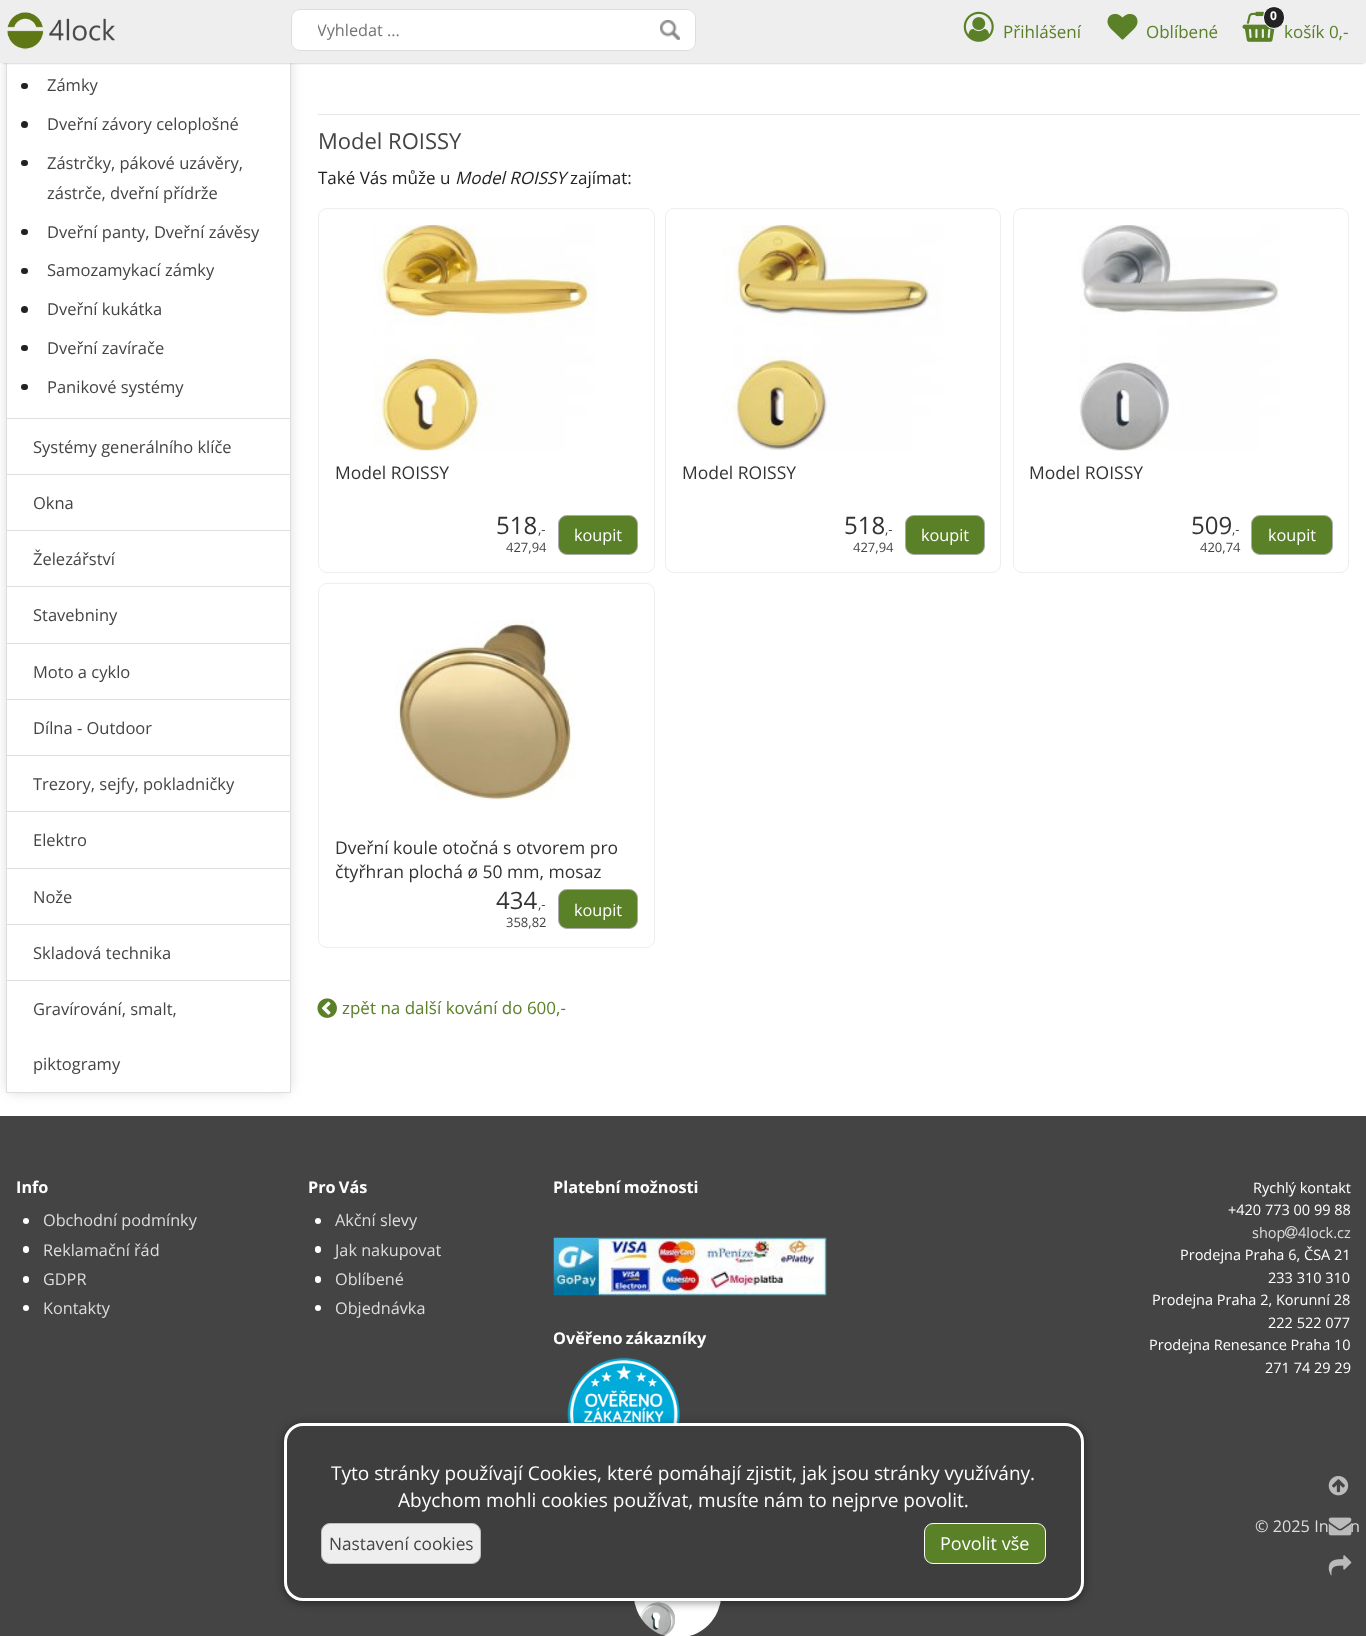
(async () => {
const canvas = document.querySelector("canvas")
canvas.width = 1366
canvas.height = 1636
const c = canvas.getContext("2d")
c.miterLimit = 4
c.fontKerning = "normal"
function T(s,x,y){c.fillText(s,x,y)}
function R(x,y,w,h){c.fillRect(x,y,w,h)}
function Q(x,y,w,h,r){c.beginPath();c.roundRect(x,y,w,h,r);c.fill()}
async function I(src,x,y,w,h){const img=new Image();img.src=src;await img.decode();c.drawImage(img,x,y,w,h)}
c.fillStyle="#fff"
R(0,0,1366,1636)
c.fillStyle="#ddd"
c.filter="blur(6px)"
c.beginPath()
c.roundRect(6,-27,285,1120,9)
c.fill()
c.filter="none"
c.fillStyle="#fff"
R(7,63,283,355)
c.strokeStyle="#ddd"
c.strokeRect(6.5,-.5,284,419)
c.fillStyle="#aaa"
c.filter="blur(1px)"
c.beginPath()
c.rect(3,-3,1361,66)
c.fill()
c.filter="none"
c.fillStyle="#eee"
R(0,0,1366,63)
await I("1.png",7,12,108,38)
c.fillStyle="#fff"
Q(291,9,405,42,9)
await I("2.png",660,20,20,20)
c.beginPath()
c.roundRect(291.5,9.5,404,41,8.5)
c.stroke()
c.save()
c.beginPath()
c.rect(318,19,352,22)
c.clip()
c.font="16.25px Open Sans"
c.fillStyle="#757575"
T("Vyhledat ...",317,36)
c.restore()
await I("3.png",963,11,31,31)
c.font="17px Open Sans"
c.fillStyle="#5a8028"
T("Přihlášení",1003,38)
await I("4.png",1107,13,31,27)
T("Oblíbené",1146,38)
await I("5.png",1242,11,35,31)
c.fillStyle="#222"
c.beginPath()
c.roundRect(1263.5,6.5,21,22,10.5)
c.fill()
c.strokeStyle="#fff"
c.stroke()
c.font="bold 12px Open Sans"
c.fillStyle="#fff"
T("0",1270,20)
c.font="17px Open Sans"
c.fillStyle="#5a8028"
T("košík 0,-",1284,38)
c.fillStyle="#222"
Q(21,83,7,6,3)
c.font="16.5px Open Sans"
c.fillStyle="#444"
T("Zámky",47,91)
c.fillStyle="#222"
c.beginPath()
c.arc(24.5,124.5,3.5,0,7)
c.fill()
c.fillStyle="#444"
T("Dveřní závory celoplošné",47,130)
c.fillStyle="#222"
Q(21,160,7,6,3)
c.fillStyle="#444"
T("Zástrčky, pákové uzávěry,",47,169)
T("zástrče, dveřní přídrže",47,199)
c.fillStyle="#222"
Q(21,229,7,6,3)
c.fillStyle="#444"
T("Dveřní panty, Dveřní závěsy",47,238)
c.fillStyle="#222"
Q(21,268,7,6,3)
c.fillStyle="#444"
T("Samozamykací zámky",47,276)
c.fillStyle="#222"
c.beginPath()
c.arc(24.5,309.5,3.5,0,7)
c.fill()
c.fillStyle="#444"
T("Dveřní kukátka",47,315)
c.fillStyle="#222"
Q(21,345,7,6,3)
c.fillStyle="#444"
T("Dveřní zavírače",47,354)
c.fillStyle="#222"
Q(21,384,7,6,3)
c.fillStyle="#444"
T("Panikové systémy",47,393)
c.fillStyle="#fff"
c.beginPath()
c.rect(6.5,418.5,284,56)
c.fill()
c.strokeStyle="#ddd"
c.stroke()
c.fillStyle="#444"
T("Systémy generálního klíče",33,453)
c.fillStyle="#fff"
c.beginPath()
c.rect(6.5,474.5,284,56)
c.fill()
c.stroke()
c.fillStyle="#444"
T("Okna",33,509)
c.fillStyle="#fff"
R(7,531,283,55)
c.strokeRect(6.5,530.5,284,57)
c.fillStyle="#444"
T("Železářství",33,565)
c.fillStyle="#fff"
c.beginPath()
c.rect(6.5,586.5,284,57)
c.fill()
c.stroke()
c.fillStyle="#444"
T("Stavebniny",33,621)
c.fillStyle="#fff"
c.beginPath()
c.rect(6.5,643.5,284,56)
c.fill()
c.stroke()
c.fillStyle="#444"
T("Moto a cyklo",33,678)
c.fillStyle="#fff"
c.beginPath()
c.rect(6.5,699.5,284,56)
c.fill()
c.stroke()
c.fillStyle="#444"
T("Dílna - Outdoor",33,734)
c.fillStyle="#fff"
R(7,756,283,55)
c.strokeRect(6.5,755.5,284,57)
c.fillStyle="#444"
T("Trezory, sejfy, pokladničky",33,790)
c.fillStyle="#fff"
c.beginPath()
c.rect(6.5,811.5,284,57)
c.fill()
c.stroke()
c.fillStyle="#444"
T("Elektro",33,846)
c.fillStyle="#fff"
c.beginPath()
c.rect(6.5,868.5,284,56)
c.fill()
c.stroke()
c.fillStyle="#444"
T("Nože",33,903)
c.fillStyle="#fff"
c.beginPath()
c.rect(6.5,924.5,284,56)
c.fill()
c.stroke()
c.fillStyle="#444"
T("Skladová technika",33,959)
c.fillStyle="#fff"
c.beginPath()
c.rect(6.5,980.5,284,112)
c.fill()
c.stroke()
c.fillStyle="#444"
T("Gravírování, smalt,",33,1015)
T("piktogramy",33,1070)
c.fillStyle="#e7e7e7"
R(318,114,1042,1)
c.font="22px Open Sans"
c.fillStyle="#444"
T("Model ROISSY",318,149)
c.font="17px Open Sans"
c.fillStyle="#222"
T("Také Vás může u",318,184)
c.font="italic 17px Open Sans"
T("Model ROISSY",455,184)
c.font="17px Open Sans"
T("zajímat:",570,184)
c.beginPath()
c.roundRect(318.5,208.5,336,364,8.5)
c.strokeStyle="#eee"
c.stroke()
await I("6.png",374,225,222,226)
c.font="17.5px Open Sans"
c.fillStyle="#333"
T("Model ROISSY",335,479)
c.font="24px Open Sans"
T("518",496,534)
c.font="13px Open Sans"
c.fillStyle="#444"
T(",-",538,534)
T("427,94",506,552)
c.fillStyle="#5a8028"
c.beginPath()
c.roundRect(558.5,515.5,79,39,8.5)
c.fill()
c.strokeStyle="#aaa"
c.stroke()
c.font="16.25px Open Sans"
c.fillStyle="#fff"
T("koupit",574,541)
c.beginPath()
c.roundRect(665.5,208.5,335,364,8.5)
c.strokeStyle="#eee"
c.stroke()
await I("7.png",722,225,221,226)
c.font="17.5px Open Sans"
c.fillStyle="#333"
T("Model ROISSY",682,479)
c.font="24px Open Sans"
T("518",844,534)
c.font="13px Open Sans"
c.fillStyle="#444"
T(",-",885,534)
T("427,94",853,552)
c.fillStyle="#5a8028"
c.beginPath()
c.roundRect(905.5,515.5,79,39,8.5)
c.fill()
c.strokeStyle="#aaa"
c.stroke()
c.font="16.25px Open Sans"
c.fillStyle="#fff"
T("koupit",921,541)
c.beginPath()
c.roundRect(1013.5,208.5,335,364,8.5)
c.strokeStyle="#eee"
c.stroke()
await I("8.png",1079,225,200,226)
c.font="17.5px Open Sans"
c.fillStyle="#333"
T("Model ROISSY",1029,479)
c.font="24px Open Sans"
T("509",1191,534)
c.font="13px Open Sans"
c.fillStyle="#444"
T(",-",1232,534)
T("420,74",1200,552)
c.fillStyle="#5a8028"
c.beginPath()
c.roundRect(1251.5,515.5,81,39,8.5)
c.fill()
c.strokeStyle="#aaa"
c.stroke()
c.font="16.25px Open Sans"
c.fillStyle="#fff"
T("koupit",1268,541)
c.beginPath()
c.roundRect(318.5,583.5,336,364,8.5)
c.strokeStyle="#eee"
c.stroke()
await I("9.png",395,619,180,181)
c.font="17.5px Open Sans"
c.fillStyle="#333"
T("Dveřní koule otočná s otvorem pro",335,854)
T("čtyřhran plochá ø 50 mm, mosaz",335,878)
c.font="24px Open Sans"
T("434",496,909)
c.font="13px Open Sans"
c.fillStyle="#444"
T(",-",538,909)
T("358,82",506,927)
c.fillStyle="#5a8028"
c.beginPath()
c.roundRect(558.5,889.5,79,39,8.5)
c.fill()
c.strokeStyle="#aaa"
c.stroke()
c.font="16.25px Open Sans"
c.fillStyle="#fff"
T("koupit",574,916)
await I("10.png",317,998,20,20)
c.font="17px Open Sans"
c.fillStyle="#5a8028"
T("zpět na další kování do 600,-",342,1014)
c.fillStyle="#444"
R(0,1116,1366,520)
c.font="bold 16.25px Open Sans"
c.fillStyle="#fff"
T("Info",16,1193)
c.beginPath()
c.arc(26,1221,3,0,7)
c.fill()
c.font="16.25px Open Sans"
c.fillStyle="#ddd"
T("Obchodní podmínky",43,1226)
c.fillStyle="#fff"
Q(23,1246,6,7,3)
c.fillStyle="#ddd"
T("Reklamační řád",43,1256)
c.fillStyle="#fff"
Q(23,1276,6,7,3)
c.fillStyle="#ddd"
T("GDPR",43,1285)
c.fillStyle="#fff"
c.beginPath()
c.arc(26,1308,3,0,7)
c.fill()
c.fillStyle="#ddd"
T("Kontakty",43,1314)
c.wordSpacing="-1px"
c.font="bold 16.25px Open Sans"
c.fillStyle="#fff"
T("Pro Vás",308,1193)
c.beginPath()
c.arc(318,1221,3,0,7)
c.fill()
c.wordSpacing="0px"
c.font="16.25px Open Sans"
c.fillStyle="#ddd"
T("Akční slevy",335,1226)
c.fillStyle="#fff"
Q(315,1246,6,7,3)
c.fillStyle="#ddd"
T("Jak nakupovat",335,1256)
c.fillStyle="#fff"
Q(315,1276,6,7,3)
c.fillStyle="#ddd"
T("Oblíbené",335,1285)
c.fillStyle="#fff"
c.beginPath()
c.arc(318,1308,3,0,7)
c.fill()
c.fillStyle="#ddd"
T("Objednávka",335,1314)
c.wordSpacing="-1px"
c.font="bold 16.25px Open Sans"
c.fillStyle="#fff"
T("Platební možnosti",553,1193)
await I("11.png",553,1237,274,59)
c.wordSpacing="0px"
c.font="14.5px Open Sans"
T("Rychlý kontakt",1253,1193)
T("+420 773 00 99 88",1228,1215)
c.fillStyle="#ddd"
T("shop",1252,1238)
await I("12.png",1285,1226,13,13)
T("4lock.cz",1298,1238)
c.fillStyle="#fff"
T("Prodejna Praha 6, ČSA 21",1180,1260)
T("233 310 310",1268,1283)
T("Prodejna Praha 2, Korunní 28",1152,1305)
T("222 522 077",1268,1328)
T("Prodejna Renesance Praha 10",1149,1350)
T("271 74 29 29",1265,1373)
c.wordSpacing="-1px"
c.font="bold 16.25px Open Sans"
T("Ověřeno zákazníky",553,1344)
await I("13.png",567,1357,113,66)
await I("14.png",1328,1476,21,20)
c.wordSpacing="0px"
c.font="16.25px Open Sans"
c.fillStyle="#ddd"
T("n",1350,1532)
await I("15.png",1328,1517,24,19)
await I("16.png",1328,1555,24,21)
T("© 2025 In",1255,1532)
await I("17.png",634,1601,87,35)
c.fillStyle="#00000066"
c.filter="blur(4px)"
c.beginPath()
c.roundRect(284,1424,800,179,19)
c.fill()
c.filter="none"
c.fillStyle="#3e3e3e"
c.beginPath()
c.roundRect(285.5,1424.5,797,175,17.5)
c.fill()
c.strokeStyle="#fff"
c.lineWidth=3
c.stroke()
c.font="19.05px Open Sans"
c.fillStyle="#fff"
T("Tyto stránky používají Cookies, které pomáhají zjistit, jak jsou stránky využívány.",331,1480)
T("Abychom mohli cookies používat, musíte nám to nejprve povolit.",398,1507)
c.fillStyle="#eee"
c.beginPath()
c.roundRect(321.5,1523.5,159,40,8.5)
c.fill()
c.strokeStyle="#c0c0c0"
c.lineWidth=1
c.stroke()
c.font="17.25px Open Sans"
c.fillStyle="#444"
T("Nastavení cookies",329,1550)
c.fillStyle="#5a8028"
c.beginPath()
c.roundRect(924.5,1523.5,121,40,8.5)
c.fill()
c.strokeStyle="#fff"
c.stroke()
c.font="18px Open Sans"
c.fillStyle="#fff"
T("Povolit vše",940,1550)
})()
